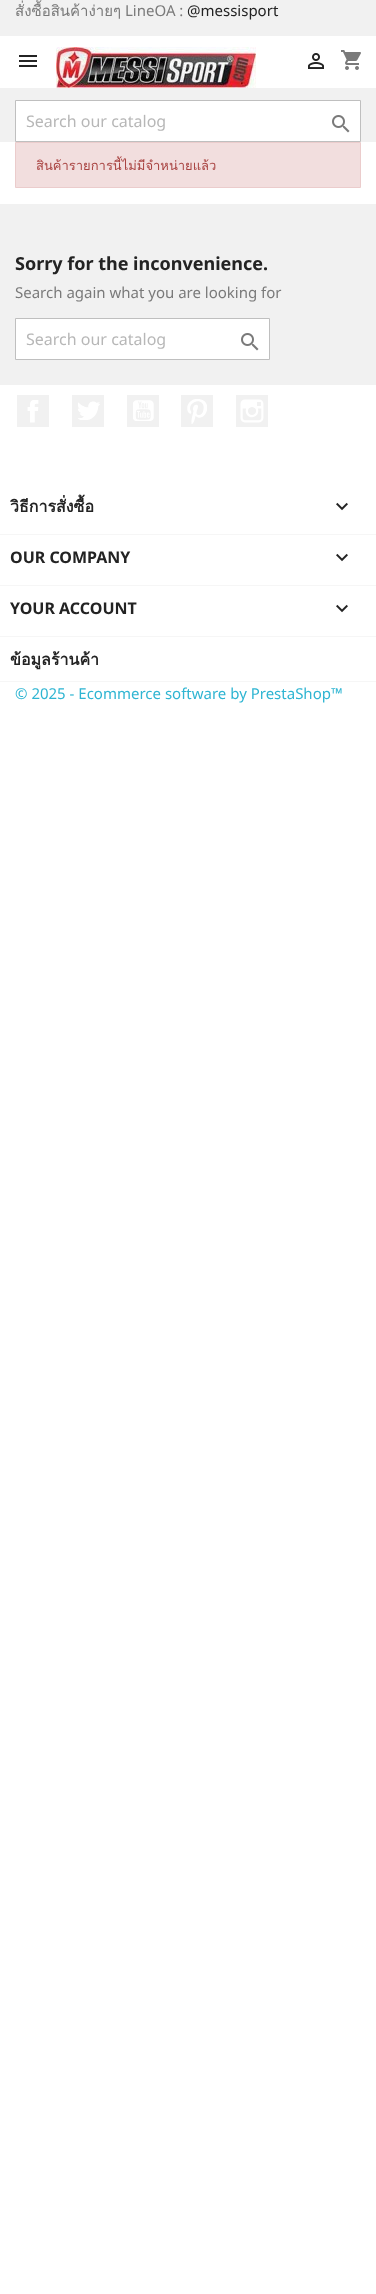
(async () => {
const canvas = document.querySelector("canvas")
canvas.width = 376
canvas.height = 2294
const c = canvas.getContext("2d")
c.miterLimit = 4
c.fontKerning = "normal"
function T(s,x,y){c.fillText(s,x,y)}
function R(x,y,w,h){c.fillRect(x,y,w,h)}
async function I(src,x,y,w,h){const img=new Image();img.src=src;await img.decode();c.drawImage(img,x,y,w,h)}
c.fillStyle="#fff"
R(0,0,376,2294)
c.fillStyle="#f1f1f1"
R(0,0,376,142)
c.font="15px Loma"
c.fillStyle="#7a7a7a"
T("สั่งซื้อสินค้าง่ายๆ",15,16)
c.font="15px Noto Sans"
T("LineOA :",125,16)
c.fillStyle="#232323"
T("@messisport",187,16)
c.fillStyle="#fff"
R(0,36,376,52)
await I("1.png",19,55,18,12)
await I("2.png",56,47,200,41)
await I("3.png",308,53,16,16)
await I("4.png",341,50,20,20)
c.beginPath()
c.rect(15.5,100.5,345,41)
c.fill()
c.strokeStyle="#bfbfbf"
c.stroke()
c.font="16px Noto Sans"
c.fillStyle="#b7b7b7"
T("Search our catalog",26,127)
await I("5.png",332,115,18,18)
c.fillStyle="#f2dede"
c.beginPath()
c.rect(15.5,142.5,345,45)
c.fill()
c.strokeStyle="#ebcccc"
c.stroke()
c.font="13px Loma"
c.fillStyle="#a94442"
T("สินค้ารายการนี้ไม่มีจำหน่ายแล้ว",36,170)
c.fillStyle="#f1f1f1"
R(0,204,376,181)
c.font="bold 18px Noto Sans"
c.fillStyle="#232323"
T("Sorry for the inconvenience.",15,270)
c.font="15px Noto Sans"
c.fillStyle="#7a7a7a"
T("Search again what you are looking for",15,298)
c.fillStyle="#fff"
c.beginPath()
c.rect(15.5,318.5,254,41)
c.fill()
c.strokeStyle="#bfbfbf"
c.stroke()
c.font="16px Noto Sans"
c.fillStyle="#b7b7b7"
T("Search our catalog",26,345)
await I("5.png",241,333,18,18)
c.fillStyle="#f1f1f1"
R(17,395,32,32)
await I("6.png",27,400,12,23)
R(72,395,32,32)
await I("7.png",78,401,22,19)
R(127,395,32,32)
await I("8.png",133,400,21,21)
R(181,395,32,32)
await I("9.png",187,399,20,25)
R(236,395,32,32)
await I("10.png",240,399,24,24)
c.fillStyle="#f6f6f6"
R(0,534,376,1)
c.font="bold 16px Loma"
c.fillStyle="#232323"
T("วิธีการสั่งซื้อ",10,512)
await I("11.png",336,502,12,9)
c.fillStyle="#f6f6f6"
R(0,585,376,1)
c.font="bold 16px Noto Sans"
c.fillStyle="#232323"
T("OUR COMPANY",10,563)
await I("11.png",336,553,12,9)
c.fillStyle="#f6f6f6"
R(0,636,376,1)
c.fillStyle="#232323"
T("YOUR ACCOUNT",10,614)
await I("11.png",336,604,12,9)
c.fillStyle="#f6f6f6"
R(0,681,376,1)
c.font="bold 16px Loma"
c.fillStyle="#232323"
T("ข้อมูลร้านค้า",10,665)
c.font="15px Noto Sans"
c.fillStyle="#2fb5d2"
T("© 2025 - Ecommerce software by PrestaShop™",15,699)
})()
